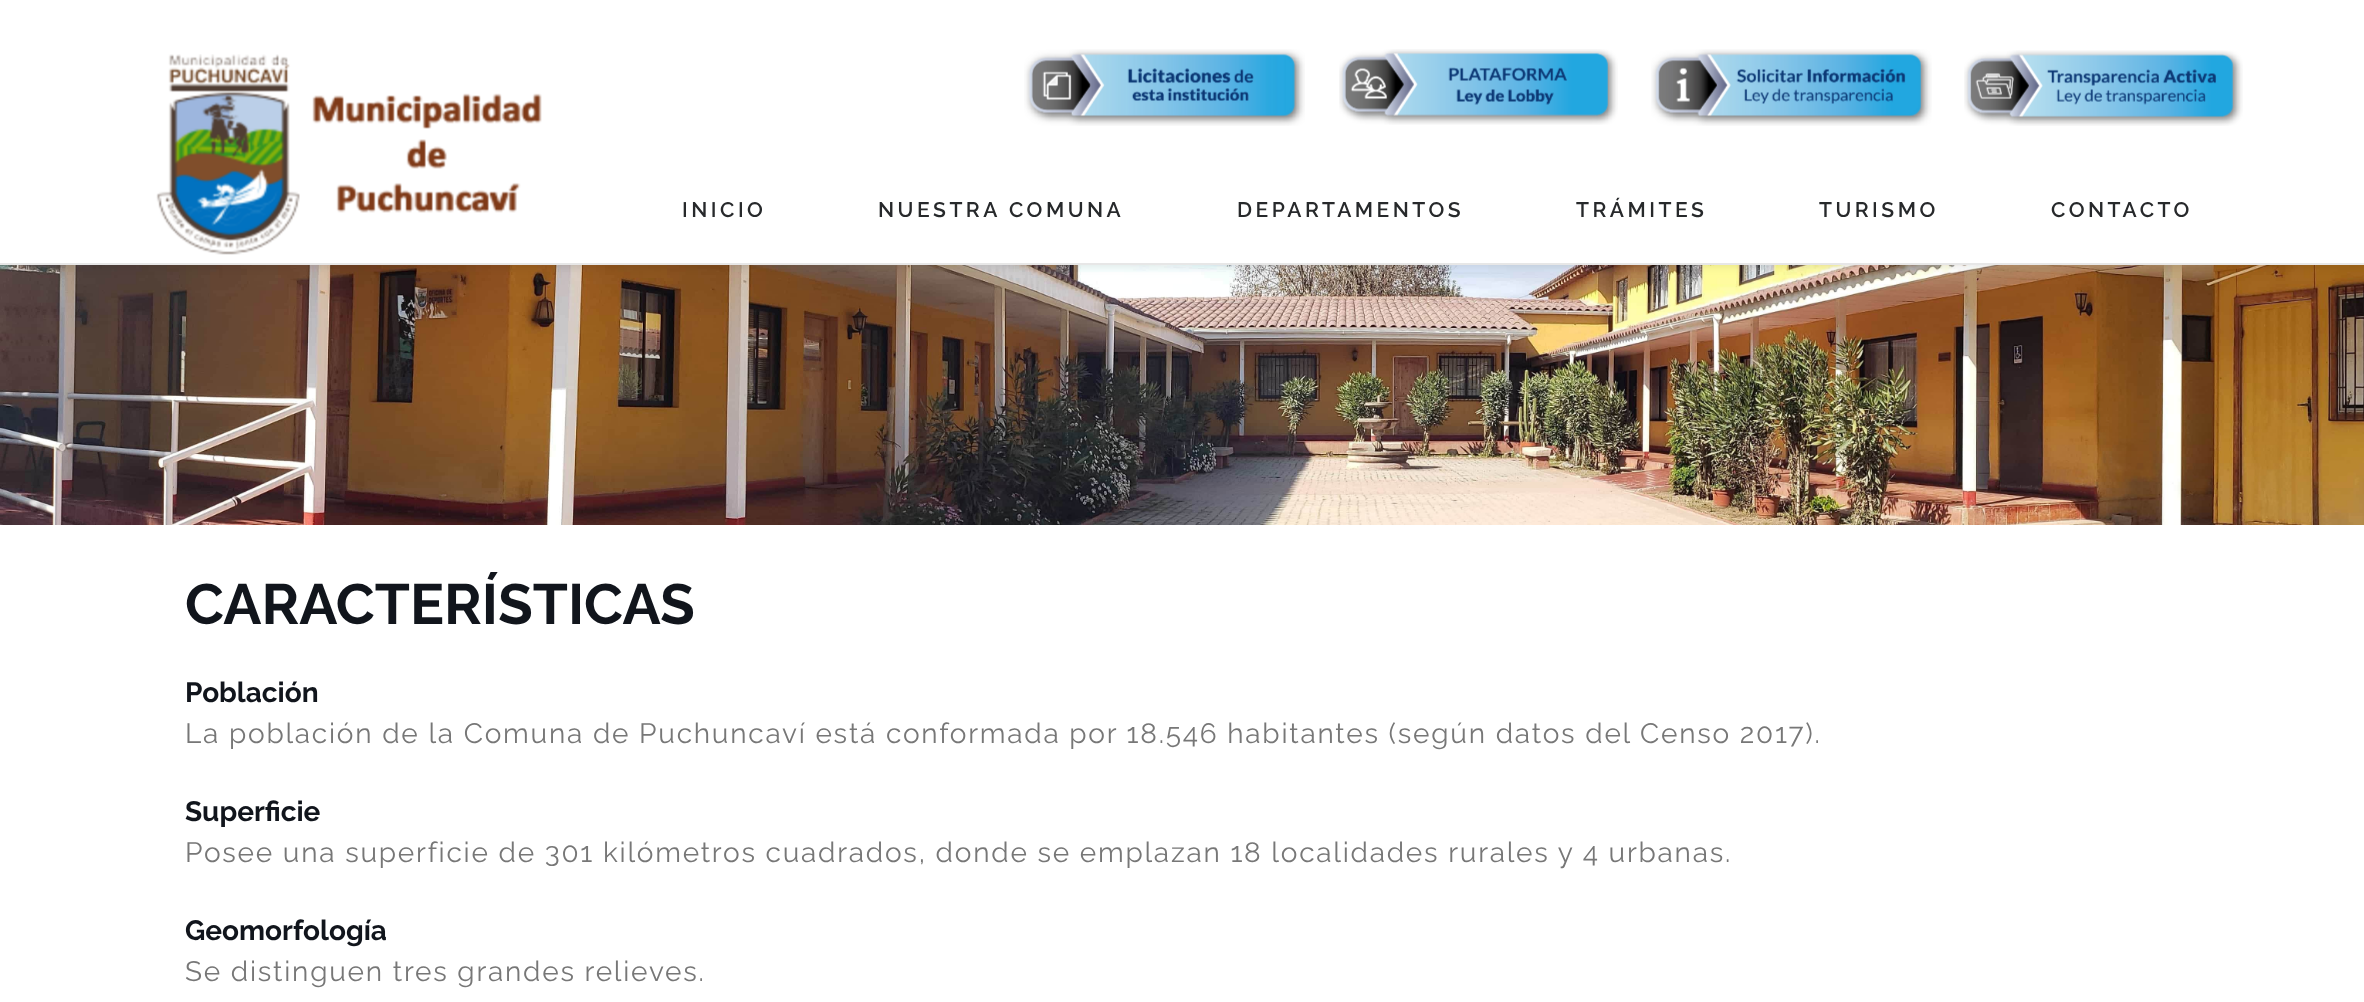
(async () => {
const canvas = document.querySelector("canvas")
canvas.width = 2364
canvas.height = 1002
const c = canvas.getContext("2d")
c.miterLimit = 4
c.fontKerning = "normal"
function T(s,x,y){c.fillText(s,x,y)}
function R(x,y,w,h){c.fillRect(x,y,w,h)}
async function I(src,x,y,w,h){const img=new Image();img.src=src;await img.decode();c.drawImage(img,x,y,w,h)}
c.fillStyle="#fff"
R(0,0,2364,1002)
await I("6.png",0,265,2364,260)
c.fillStyle="#0000001a"
c.filter="blur(5px)"
c.beginPath()
c.rect(0,2,2364,264)
c.fill()
c.filter="none"
c.fillStyle="#fff"
R(0,0,2364,263)
c.fillStyle="#e7e7e7"
R(0,263,2364,2)
await I("1.png",156,54,386,201)
await I("2.png",1024,49,281,77)
await I("3.png",1339,49,279,76)
await I("4.png",1651,49,281,77)
await I("5.png",1964,50,279,76)
c.letterSpacing="3.5px"
c.font="600 21px Raleway"
c.fillStyle="#27292b"
T("INICIO",682,217)
T("NUESTRA COMUNA",878,217)
T("DEPARTAMENTOS",1237,217)
T("TRÁMITES",1576,217)
T("TURISMO",1819,217)
T("CONTACTO",2051,217)
c.letterSpacing="0px"
c.font="bold 56.75px Raleway"
c.fillStyle="#11151c"
T("CARACTERÍSTICAS",185,624)
c.font="bold 28px Raleway"
T("Población",185,702)
c.letterSpacing="1.75px"
c.font="28px Raleway"
c.fillStyle="#777"
T("La población de la Comuna de Puchuncaví está conformada por 18.546 habitantes (según datos del Censo 2017).",185,743)
c.letterSpacing="0px"
c.font="bold 28px Raleway"
c.fillStyle="#11151c"
T("Superficie",185,821)
c.letterSpacing="1.75px"
c.font="28px Raleway"
c.fillStyle="#777"
T("Posee una superficie de 301 kilómetros cuadrados, donde se emplazan 18 localidades rurales y 4 urbanas.",185,862)
c.letterSpacing="0px"
c.font="bold 28px Raleway"
c.fillStyle="#11151c"
T("Geomorfología",185,940)
c.letterSpacing="1.75px"
c.font="28px Raleway"
c.fillStyle="#777"
T("Se distinguen tres grandes relieves.",185,981)
})()
